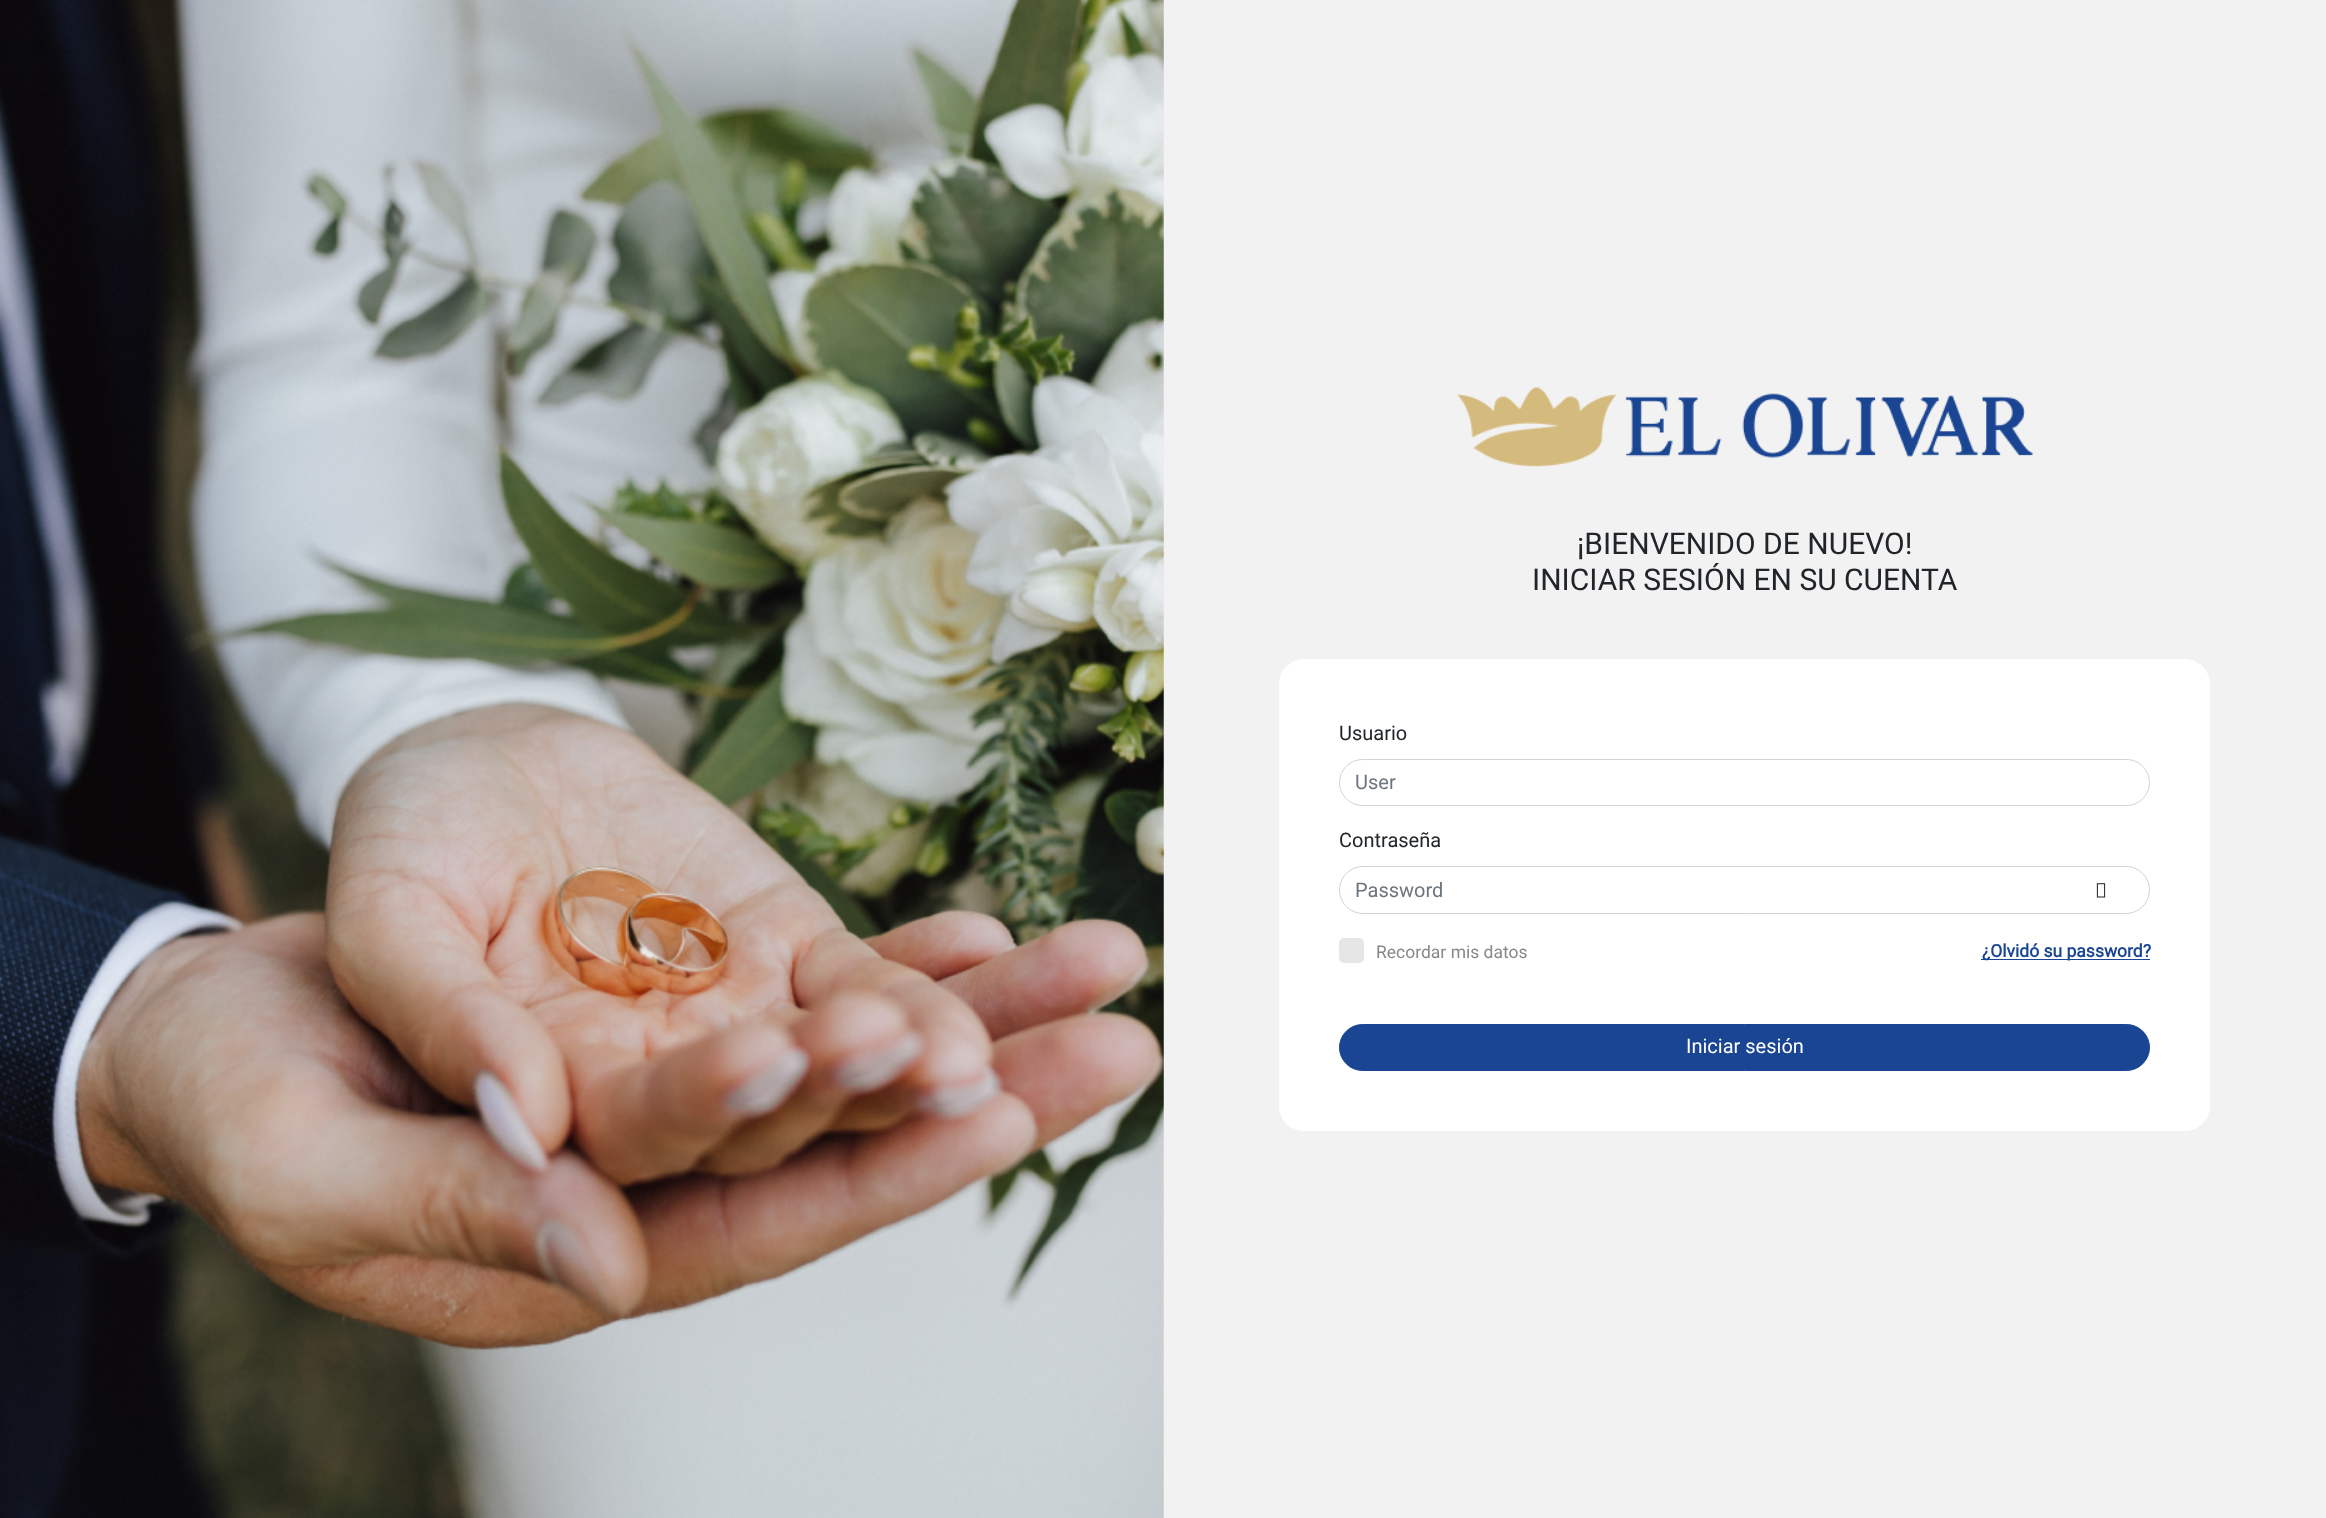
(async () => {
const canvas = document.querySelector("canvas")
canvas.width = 2326
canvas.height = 1518
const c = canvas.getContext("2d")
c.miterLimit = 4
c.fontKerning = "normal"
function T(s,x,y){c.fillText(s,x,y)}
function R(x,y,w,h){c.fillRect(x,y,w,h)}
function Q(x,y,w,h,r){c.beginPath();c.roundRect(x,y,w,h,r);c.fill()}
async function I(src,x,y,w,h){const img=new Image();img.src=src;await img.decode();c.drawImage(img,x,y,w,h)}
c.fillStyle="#f2f2f2"
R(0,0,2326,1518)
await I("1.png",0,0,1164,1518)
await I("2.png",1457,387,576,80)
c.font="30px Roboto"
c.fillStyle="#212529"
T("¡BIENVENIDO DE NUEVO!",1577,554)
T("INICIAR SESIÓN EN SU CUENTA",1532,590)
c.fillStyle="#fff"
Q(1279,659,931,472,25)
c.font="20px Roboto"
c.fillStyle="#212529"
T("Usuario",1339,740)
c.beginPath()
c.roundRect(1339.5,759.5,810,46,23)
c.strokeStyle="#ced4da"
c.stroke()
c.fillStyle="#6c757d"
T("User",1355,789)
c.fillStyle="#212529"
T("Contraseña",1339,847)
c.beginPath()
c.roundRect(1339.5,866.5,810,47,23.5)
c.stroke()
c.fillStyle="#6c757d"
T("Password",1355,897)
await I("3.png",2096,883,10,15)
c.fillStyle="#e6e6e6"
Q(1339,938,25,25,5)
c.font="17.5px Roboto"
c.fillStyle="#888"
T("Recordar mis datos",1376,958)
c.fillStyle="#194593"
R(1981,959,169,1)
c.font="bold 17.5px Roboto"
T("¿Olvidó su password?",1982,957)
c.beginPath()
c.roundRect(1339.5,1024.5,810,46,23)
c.fill()
c.strokeStyle="#194593"
c.stroke()
c.font="20px Roboto"
c.fillStyle="#fff"
T("Iniciar sesión",1686,1053)
})()
